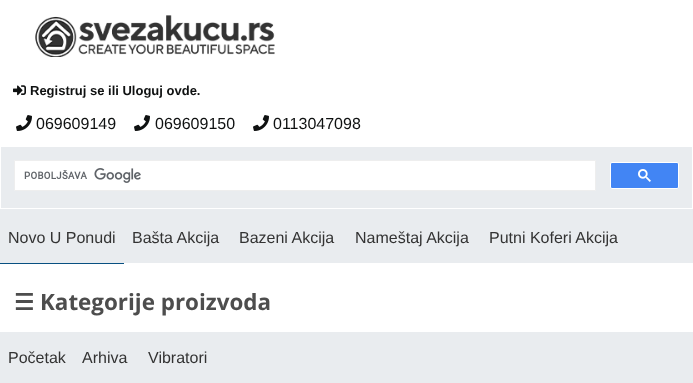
(async () => {
const canvas = document.querySelector("canvas")
canvas.width = 693
canvas.height = 383
const c = canvas.getContext("2d")
c.miterLimit = 4
c.fontKerning = "normal"
function T(s,x,y){c.fillText(s,x,y)}
function R(x,y,w,h){c.fillRect(x,y,w,h)}
async function I(src,x,y,w,h){const img=new Image();img.src=src;await img.decode();c.drawImage(img,x,y,w,h)}
c.fillStyle="#fff"
R(0,0,693,383)
await I("1.png",35,15,240,42)
await I("2.png",13,85,13,11)
c.font="bold 13px Liberation Sans"
c.fillStyle="#0f1111"
T("Registruj se ili Uloguj ovde.",30,95)
await I("3.png",16,115,16,16)
c.font="16px Liberation Sans"
T("069609149",36,129)
await I("3.png",134,115,16,16)
T("069609150",155,129)
await I("3.png",253,115,16,16)
T("0113047098",273,129)
c.fillStyle="#e9ecef"
R(1,147,691,61)
c.fillStyle="#fff"
c.beginPath()
c.rect(14.5,160.5,581,30)
c.fill()
c.strokeStyle="#eee"
c.stroke()
await I("4.png",24,168,117,15)
c.fillStyle="#4285f4"
c.beginPath()
c.roundRect(610.5,162.5,68,26,1.5)
c.fill()
c.strokeStyle="#fff"
c.stroke()
await I("5.png",638,169,13,13)
c.fillStyle="#e9ecef"
R(0,209,693,54)
c.fillStyle="#085081"
R(0,263,124,1)
c.fillStyle="#333"
T("Novo U Ponudi",8,243)
T("Bašta Akcija",132,243)
T("Bazeni Akcija",239,243)
T("Nameštaj Akcija",355,243)
T("Putni Koferi Akcija",489,243)
c.font="bold 22.4px DejaVu Sans"
c.fillStyle="#4d4d4d"
T("☰",14,310)
c.font="bold 22.4px Open Sans"
T("Kategorije proizvoda",40,310)
c.fillStyle="#e9ecef"
R(0,332,693,51)
c.font="16px Liberation Sans"
c.fillStyle="#333"
T("Početak",8,363)
T("Arhiva",82,363)
T("Vibratori",148,363)
})()
